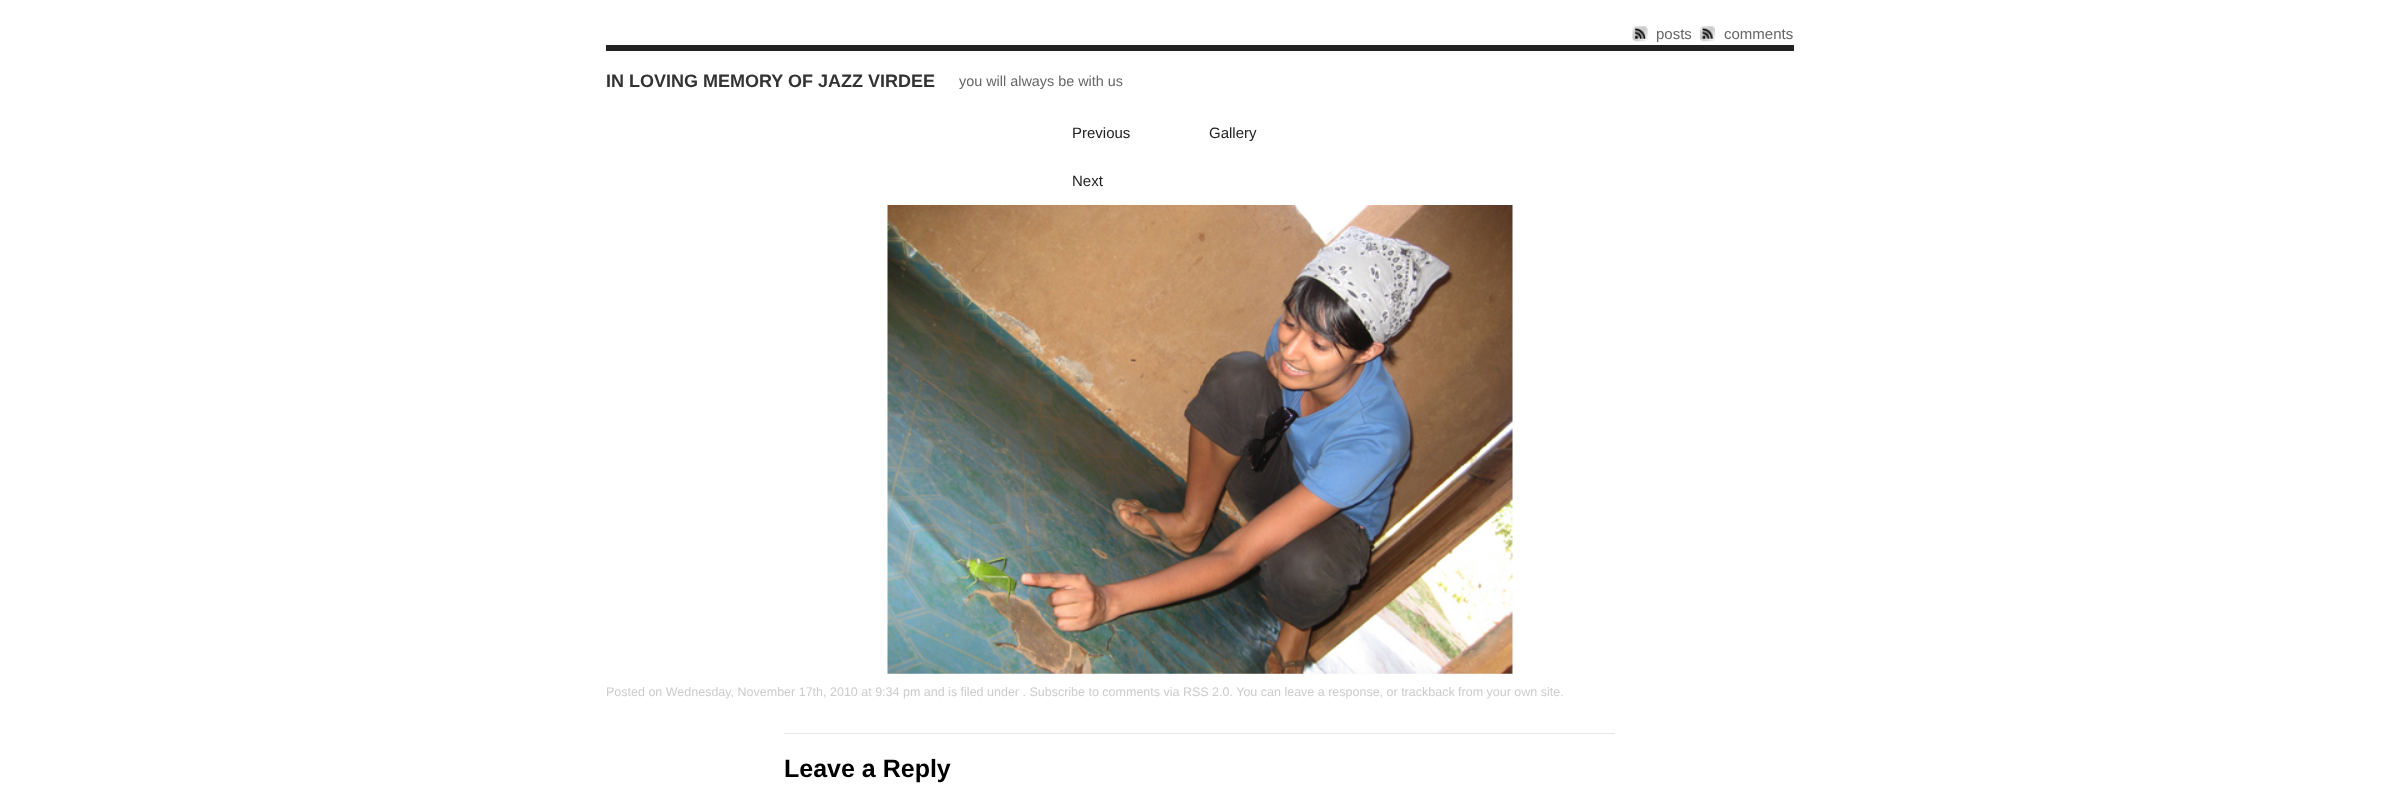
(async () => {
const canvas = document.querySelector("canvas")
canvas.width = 2398
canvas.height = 793
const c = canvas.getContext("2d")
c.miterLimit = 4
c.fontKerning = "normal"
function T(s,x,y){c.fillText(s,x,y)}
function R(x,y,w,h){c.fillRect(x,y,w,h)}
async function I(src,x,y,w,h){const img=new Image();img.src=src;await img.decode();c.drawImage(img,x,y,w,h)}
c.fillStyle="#fff"
R(0,0,2398,793)
await I("1.png",1632,26,16,16)
c.font="15px Liberation Sans"
c.fillStyle="#666"
T("posts",1656,39)
await I("2.png",1700,26,15,16)
T("comments",1724,39)
c.fillStyle="#222"
R(606,45,1188,6)
c.font="bold 18px Liberation Sans"
c.fillStyle="#333"
T("IN LOVING MEMORY OF JAZZ VIRDEE",606,87)
c.font="14.4px Liberation Sans"
c.fillStyle="#666"
T("you will always be with us",959,86)
c.font="15px Liberation Sans"
c.fillStyle="#222"
T("Previous",1072,138)
T("Gallery",1209,138)
T("Next",1072,186)
await I("3.png",887,205,626,469)
c.font="12.5px Liberation Sans"
c.fillStyle="#ccc"
T("Posted on Wednesday, November 17th, 2010 at 9:34 pm and is filed under . Subscribe to comments via RSS 2.0. You can leave a response, or trackback from your own site.",606,696)
c.fillStyle="#e7e7e7"
R(784,733,831,1)
c.font="bold 25px Liberation Sans"
c.fillStyle="#000"
T("Leave a Reply",784,777)
})()
